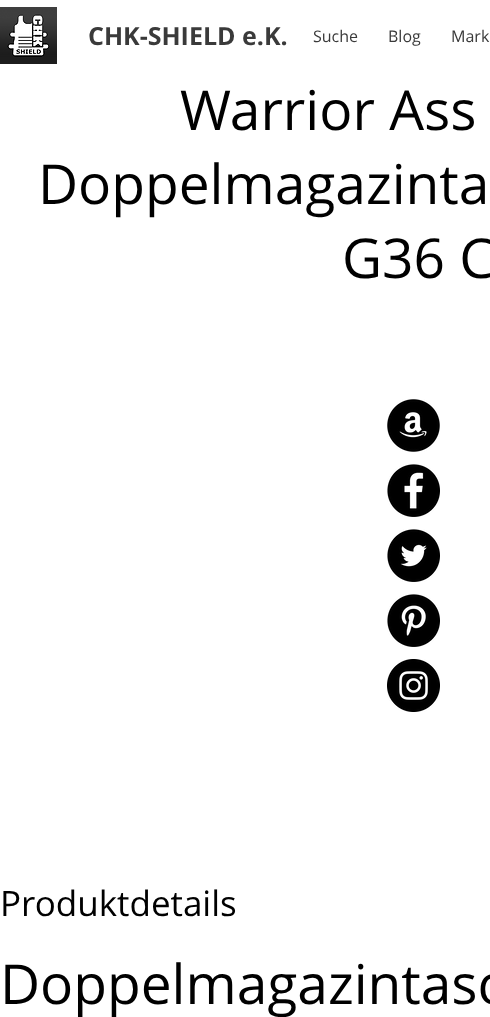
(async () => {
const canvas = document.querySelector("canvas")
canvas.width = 490
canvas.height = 1017
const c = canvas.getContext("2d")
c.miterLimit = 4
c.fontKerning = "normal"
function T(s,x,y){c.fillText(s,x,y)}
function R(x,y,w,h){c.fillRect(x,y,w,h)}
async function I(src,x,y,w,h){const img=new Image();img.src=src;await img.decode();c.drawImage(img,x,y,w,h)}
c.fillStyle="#fff"
R(0,0,490,1017)
await I("1.png",0,7,57,57)
c.font="bold 25px Open Sans"
c.fillStyle="#3a3a3a"
T("CHK-SHIELD e.K.",88,45)
c.font="16px Open Sans"
T("Suche",313,42)
T("Blog",388,42)
T("Mark",451,42)
c.font="55px Open Sans"
c.fillStyle="#000"
T("Warrior Ass",180,130)
T("Doppelmagazinta",38,204)
T("G36 C",342,278)
c.font="35px Open Sans"
T("Produktdetails",0,916)
c.font="55px Open Sans"
T("Doppelmagazintasc",0,1004)
await I("2.png",387,399,53,53)
await I("3.png",387,464,53,53)
await I("4.png",387,529,53,53)
await I("5.png",387,594,53,53)
await I("6.png",387,659,53,53)
})()
